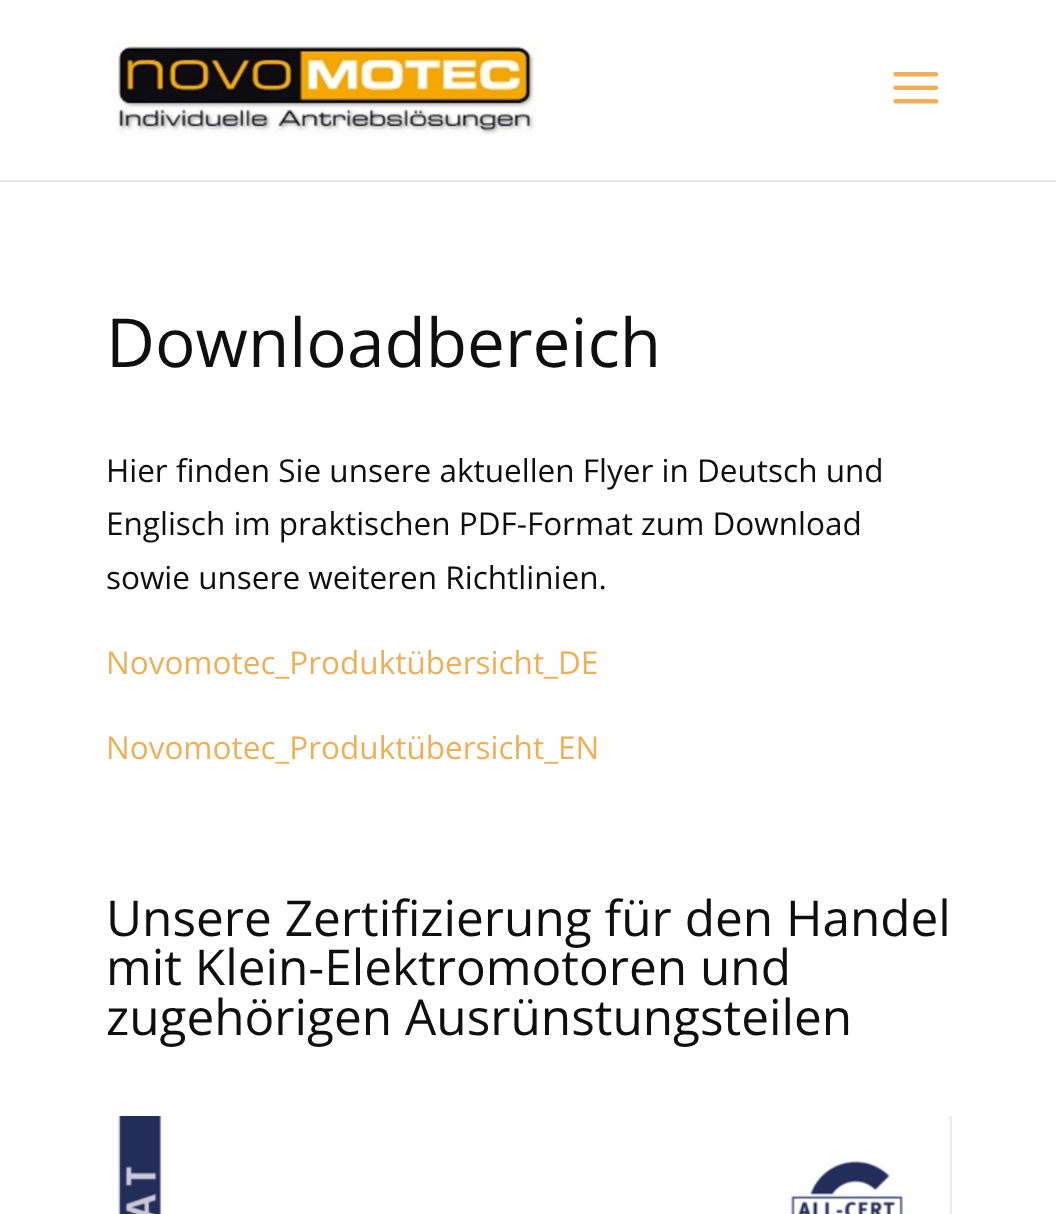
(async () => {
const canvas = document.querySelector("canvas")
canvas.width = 1056
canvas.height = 1214
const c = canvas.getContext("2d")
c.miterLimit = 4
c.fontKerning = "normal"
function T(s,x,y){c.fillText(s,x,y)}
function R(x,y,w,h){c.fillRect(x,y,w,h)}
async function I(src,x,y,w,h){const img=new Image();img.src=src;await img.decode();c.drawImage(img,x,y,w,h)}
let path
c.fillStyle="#fff"
R(0,0,1056,1214)
c.fillStyle="#e6e6e6"
path = new Path2D("M0 180v2h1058v-180v178z")
c.fill(path)
await I("1.png",114,43,423,92)
await I("2.png",893,72,46,32)
c.font="67.5px Open Sans"
c.fillStyle="#0e0f0e"
T("Downloadbereich",106,367)
c.font="31.5px Open Sans"
T("Hier finden Sie unsere aktuellen Flyer in Deutsch und",106,482)
T("Englisch im praktischen PDF-Format zum Download",106,535)
T("sowie unsere weiteren Richtlinien.",106,589)
c.fillStyle="#edb059"
T("Novomotec_Produktübersicht_DE",106,674)
T("Novomotec_Produktübersicht_EN",106,759)
c.font="49.5px Open Sans"
c.fillStyle="#0e0f0e"
T("Unsere Zertifizierung für den Handel",106,936)
T("mit Klein-Elektromotoren und",106,985)
T("zugehörigen Ausrünstungsteilen",106,1035)
await I("3.png",118,1116,834,98)
})()
